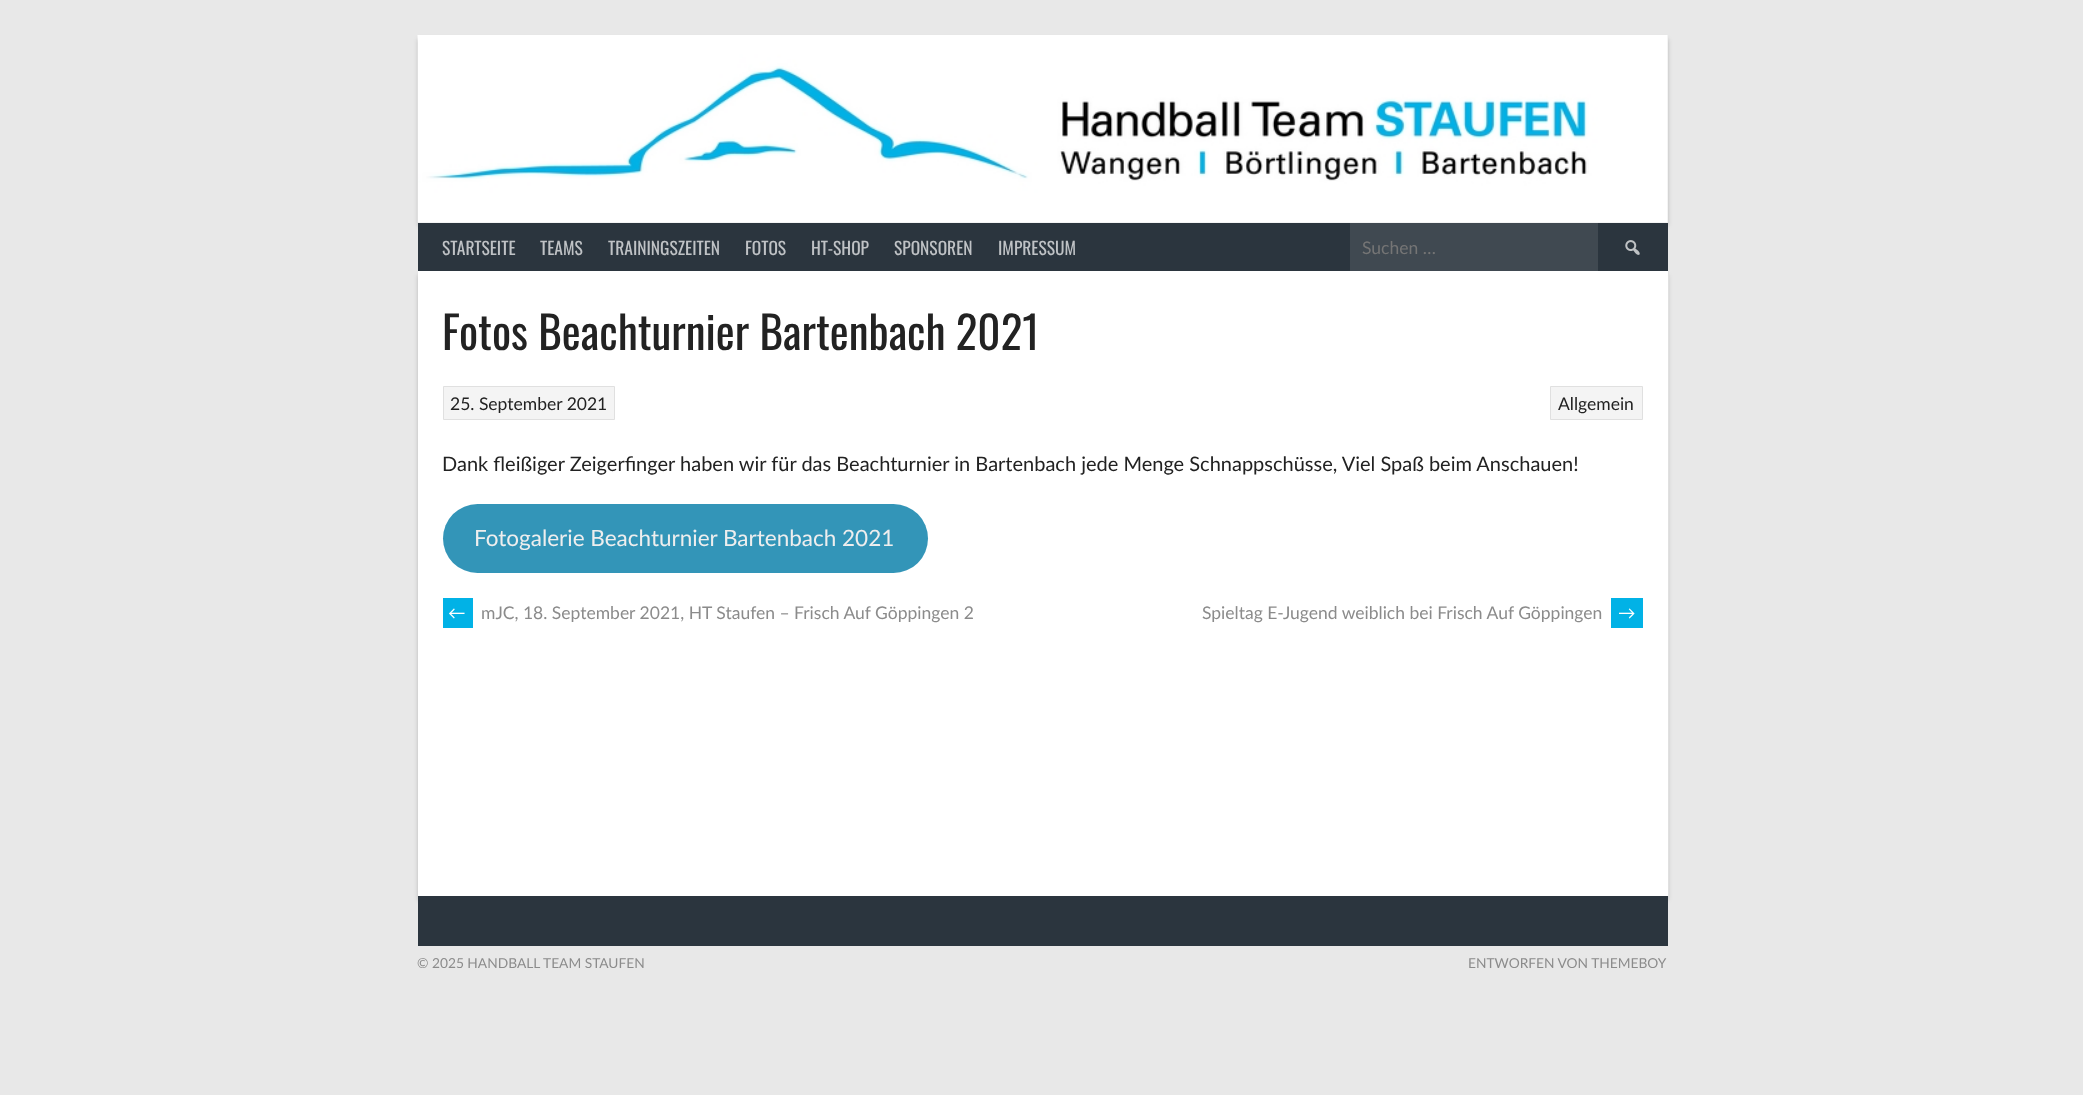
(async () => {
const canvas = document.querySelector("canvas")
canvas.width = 2083
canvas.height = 1095
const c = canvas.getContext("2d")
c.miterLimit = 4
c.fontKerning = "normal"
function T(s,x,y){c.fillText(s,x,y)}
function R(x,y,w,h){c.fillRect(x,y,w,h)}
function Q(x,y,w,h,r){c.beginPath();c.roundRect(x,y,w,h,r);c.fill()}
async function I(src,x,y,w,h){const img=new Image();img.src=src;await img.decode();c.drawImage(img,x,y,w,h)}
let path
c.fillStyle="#e8e8e8"
R(0,0,2083,1095)
await I("1.png",417,35,1251,188)
c.save()
path = new Path2D("M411 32h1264v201h-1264zm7 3h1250v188h-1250z")
c.clip(path,"evenodd")
c.fillStyle="#00000033"
c.filter="blur(2px)"
c.beginPath()
c.rect(418,39,1250,187)
c.fill()
c.filter="none"
c.restore()
c.fillStyle="#00000033"
c.filter="blur(2px)"
c.beginPath()
c.rect(418,275,1250,625)
c.fill()
c.filter="none"
c.fillStyle="#2b353e"
R(418,223,1250,48)
c.font="17.5px Oswald"
c.fillStyle="#bfc2c5"
T("STARTSEITE",442,255)
T("TEAMS",540,255)
T("TRAININGSZEITEN",608,255)
T("FOTOS",745,255)
T("HT-SHOP",811,255)
T("SPONSOREN",894,255)
T("IMPRESSUM",998,255)
c.fillStyle="#404951"
R(1350,223,248,48)
c.font="17.5px Lato"
c.fillStyle="#757575"
T("Suchen …",1362,254)
await I("2.png",1625,240,15,15)
c.fillStyle="#fff"
R(418,271,1250,625)
c.fillStyle="#e0e0e0"
path = new Path2D("M419 271h1249v625h1v-625z")
c.fill(path)
c.font="45px Oswald"
c.fillStyle="#222"
T("Fotos Beachturnier Bartenbach 2021",442,350)
c.fillStyle="#f4f4f4"
c.beginPath()
c.rect(443.5,386.5,171,33)
c.fill()
c.strokeStyle="#e0e0e0"
c.stroke()
c.font="17.5px Lato"
c.fillStyle="#222"
T("25. September 2021",450,410)
c.fillStyle="#f4f4f4"
c.beginPath()
c.rect(1550.5,386.5,92,33)
c.fill()
c.stroke()
c.fillStyle="#222"
T("Allgemein",1558,410)
c.font="20px Lato"
T("Dank fleißiger Zeigerfinger haben wir für das Beachturnier in Bartenbach jede Menge Schnappschüsse, Viel Spaß beim Anschauen!",442,471)
c.fillStyle="#3395b8"
Q(443,504,485,69,34.5)
c.font="22.5px Lato"
c.fillStyle="#eee"
T("Fotogalerie Beachturnier Bartenbach 2021",474,546)
c.fillStyle="#01b2e6"
R(443,598,30,30)
c.font="17.5px Lato"
c.fillStyle="#fff"
T("←",448,619)
c.fillStyle="#8b8b8b"
T("mJC, 18. September 2021, HT Staufen – Frisch Auf Göppingen 2",481,619)
T("Spieltag E-Jugend weiblich bei Frisch Auf Göppingen",1202,619)
c.fillStyle="#01b2e6"
R(1611,598,32,30)
c.fillStyle="#fff"
T("→",1618,619)
c.fillStyle="#2b353e"
R(418,896,1250,50)
c.font="13.75px Lato"
c.fillStyle="#8b8b8b"
T("© 2025 HANDBALL TEAM STAUFEN",417,968)
T("ENTWORFEN VON THEMEBOY",1468,968)
})()
